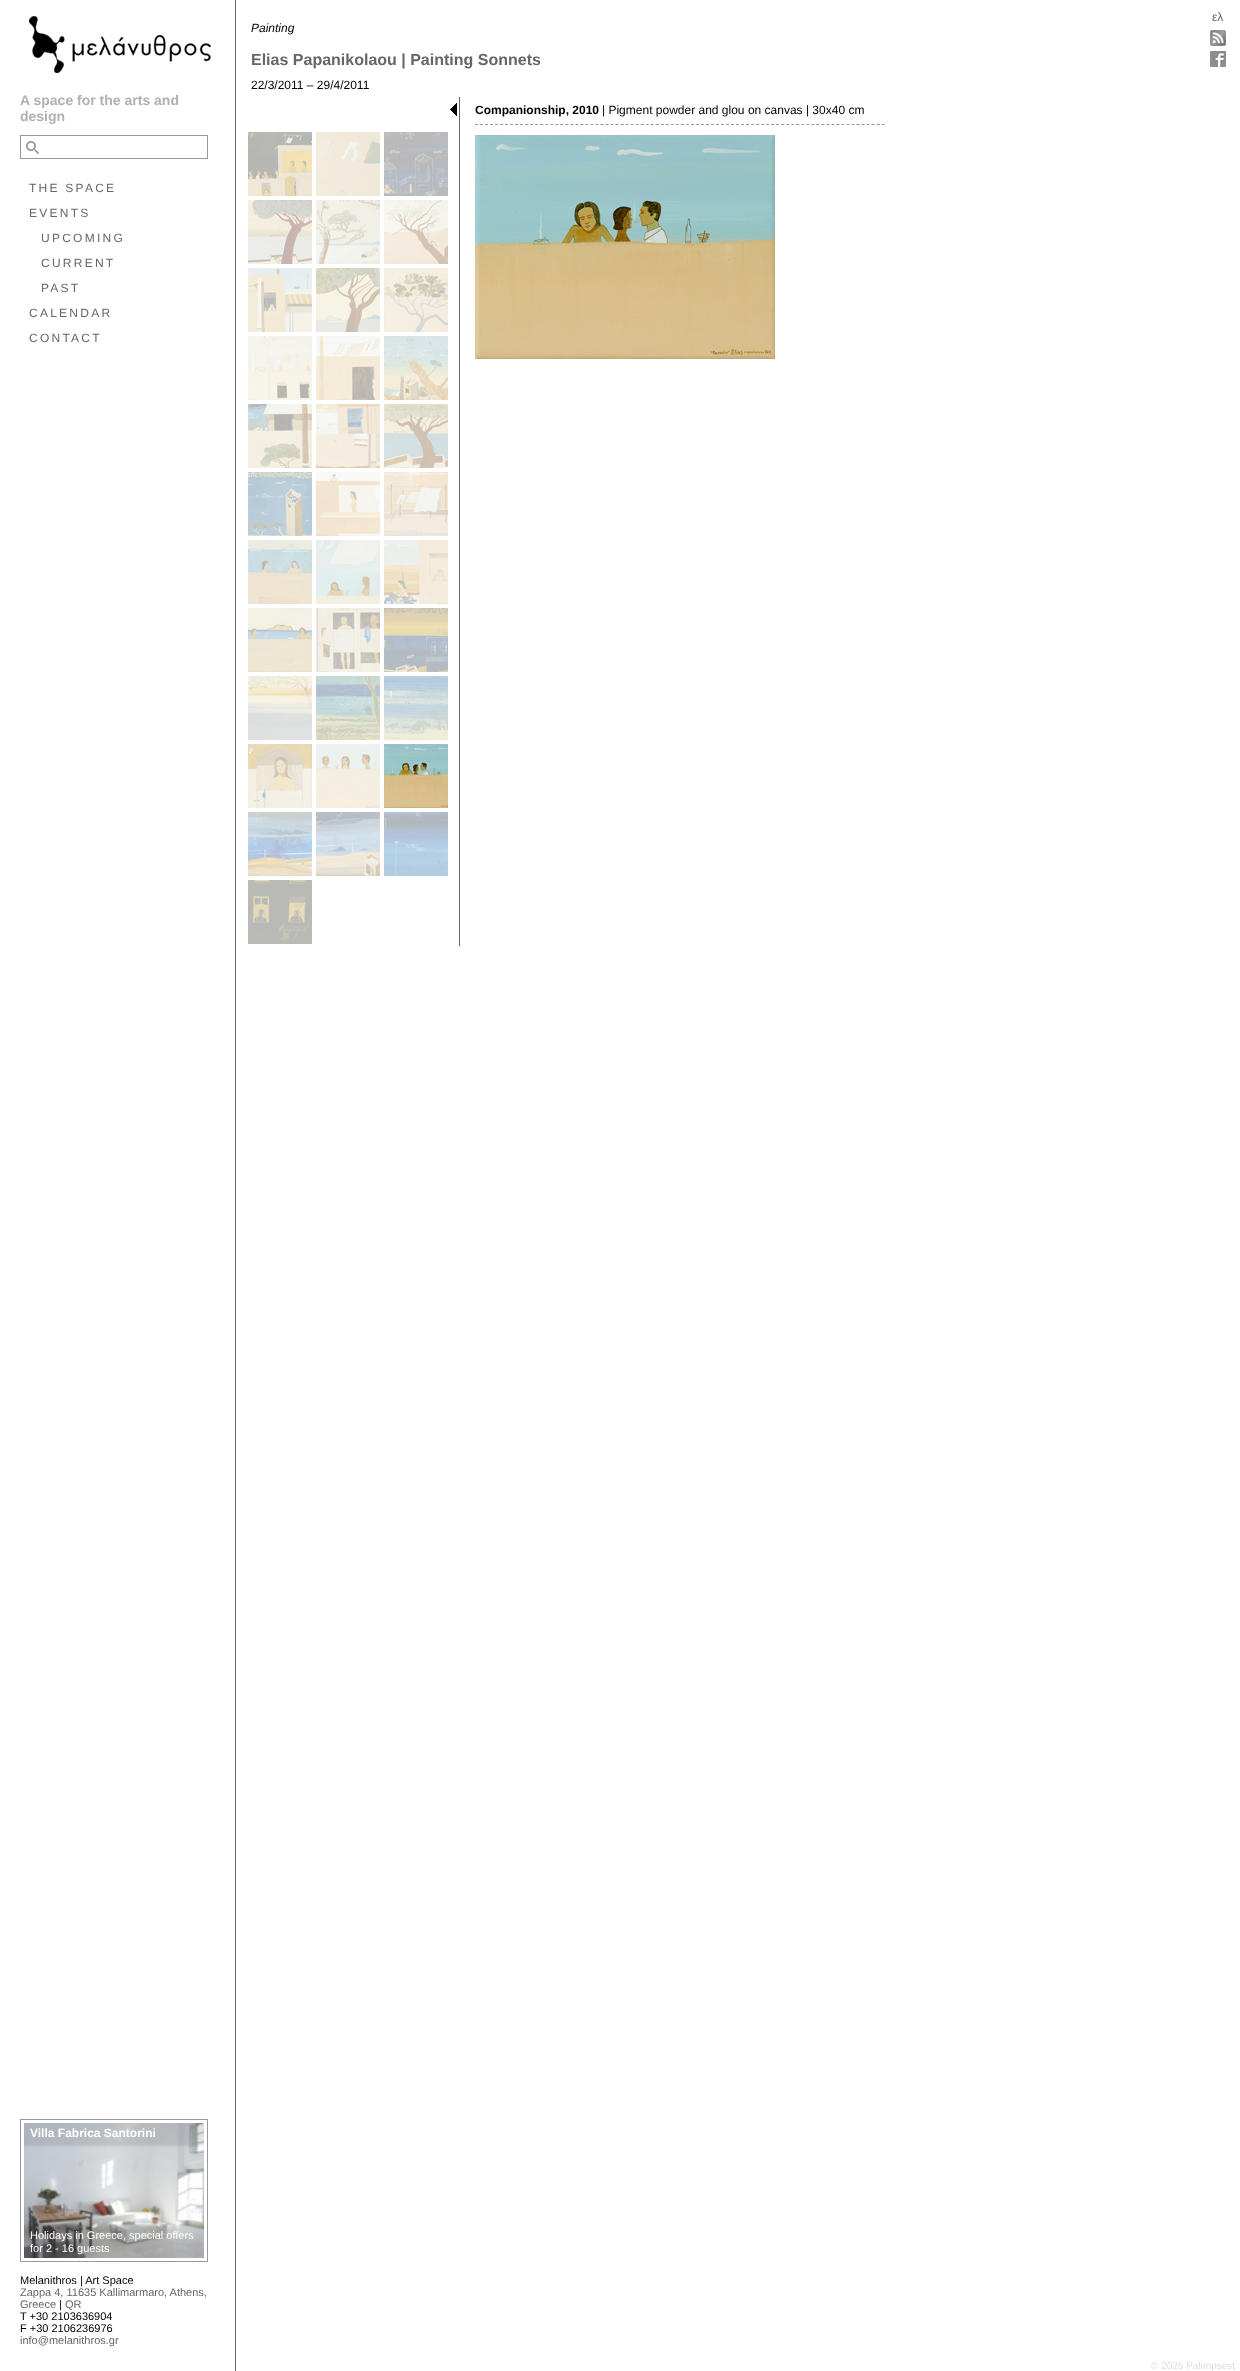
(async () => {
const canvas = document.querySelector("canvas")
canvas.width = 1240
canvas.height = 2371
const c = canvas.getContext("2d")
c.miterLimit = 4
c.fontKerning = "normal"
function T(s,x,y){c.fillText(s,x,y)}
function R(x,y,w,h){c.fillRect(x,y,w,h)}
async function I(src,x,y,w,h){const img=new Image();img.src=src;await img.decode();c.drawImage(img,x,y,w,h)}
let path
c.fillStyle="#fff"
R(0,0,1240,2371)
c.font="12px Liberation Sans"
c.fillStyle="#666"
T("ελ",1212,21)
await I("1.png",1210,30,16,16)
await I("2.png",1210,51,16,16)
c.font="italic 12px Liberation Sans"
c.fillStyle="#000"
T("Painting",251,32)
c.font="bold 16px Liberation Sans"
c.fillStyle="#666"
T("Elias Papanikolaou | Painting Sonnets",251,65)
c.font="12px Liberation Sans"
c.fillStyle="#000"
T("22/3/2011 – 29/4/2011",251,89)
await I("3.png",450,103,7,13)
await I("4.png",248,132,64,64)
await I("5.png",316,132,64,64)
await I("6.png",384,132,64,64)
await I("7.png",248,200,64,64)
await I("8.png",316,200,64,64)
await I("9.png",384,200,64,64)
await I("10.png",248,268,64,64)
await I("11.png",316,268,64,64)
await I("12.png",384,268,64,64)
await I("13.png",248,336,64,64)
await I("14.png",316,336,64,64)
await I("15.png",384,336,64,64)
await I("16.png",248,404,64,64)
await I("17.png",316,404,64,64)
await I("18.png",384,404,64,64)
await I("19.png",248,472,64,64)
await I("20.png",316,472,64,64)
await I("21.png",384,472,64,64)
await I("22.png",248,540,64,64)
await I("23.png",316,540,64,64)
await I("24.png",384,540,64,64)
await I("25.png",248,608,64,64)
await I("26.png",316,608,64,64)
await I("27.png",384,608,64,64)
await I("28.png",248,676,64,64)
await I("29.png",316,676,64,64)
await I("30.png",384,676,64,64)
await I("31.png",248,744,64,64)
await I("32.png",316,744,64,64)
await I("33.png",384,744,64,64)
await I("34.png",248,812,64,64)
await I("35.png",316,812,64,64)
await I("36.png",384,812,64,64)
await I("37.png",248,880,64,64)
c.fillStyle="#666"
R(459,97,1,849)
c.font="bold 12px Liberation Sans"
c.fillStyle="#000"
T("Companionship, 2010",475,114)
c.font="12px Liberation Sans"
T("| Pigment powder and glou on canvas | 30x40 cm",602,114)
path = new Path2D("M475 124.5h410")
c.strokeStyle="#999"
c.setLineDash([3,2.02])
c.stroke(path)
await I("38.png",475,135,300,224)
c.fillStyle="#666"
R(235,0,1,2371)
await I("39.png",29,16,182,57)
c.font="bold 14px Liberation Sans"
c.fillStyle="#b1b1b1"
T("A space for the arts and",20,105)
T("design",20,121)
c.setLineDash([])
c.strokeRect(20.5,135.5,187,23)
await I("40.png",26,141,13,13)
c.letterSpacing="2.25px"
c.font="12px Liberation Sans"
c.fillStyle="#666"
T("THE SPACE",29,192)
T("EVENTS",29,217)
T("UPCOMING",41,242)
T("CURRENT",41,267)
T("PAST",41,292)
T("CALENDAR",29,317)
T("CONTACT",29,342)
c.strokeRect(20.5,2119.5,187,142)
await I("41.png",24,2123,180,135)
c.save()
c.beginPath()
c.rect(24,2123,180,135)
c.clip()
c.beginPath()
c.rect(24,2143,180,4)
c.clip()
c.fillStyle="#0000001a"
c.filter="blur(1.5px)"
c.beginPath()
c.rect(21,2120,186,26)
c.fill()
c.filter="none"
c.restore()
c.fillStyle="#0000001a"
R(24,2123,180,20)
c.letterSpacing="0px"
c.font="bold 12px Liberation Sans"
c.fillStyle="#fff"
T("Villa Fabrica Santorini",30,2137)
c.save()
c.beginPath()
c.rect(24,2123,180,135)
c.clip()
c.beginPath()
c.rect(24,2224,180,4)
c.clip()
c.fillStyle="#0000001a"
c.filter="blur(1.5px)"
c.beginPath()
c.rect(21,2225,186,36)
c.fill()
c.filter="none"
c.restore()
c.fillStyle="#0000001a"
R(24,2228,180,30)
c.font="11px Liberation Sans"
c.fillStyle="#fff"
T("Holidays in Greece, special offers",30,2239)
T("for 2 - 16 guests",30,2252)
c.fillStyle="#000"
T("Melanithros | Art Space",20,2284)
c.fillStyle="#666"
T("Zappa 4, 11635 Kallimarmaro, Athens,",20,2296)
T("Greece",20,2308)
c.fillStyle="#000"
T("|",59,2308)
c.fillStyle="#666"
T("QR",65,2308)
c.fillStyle="#000"
T("Τ +30 2103636904",20,2320)
T("F +30 2106236976",20,2332)
c.fillStyle="#666"
T("info@melanithros.gr",20,2344)
c.font="10px Liberation Sans"
c.fillStyle="#ddd"
T("© 2025 Palimpsest",1151,2369)
})()
